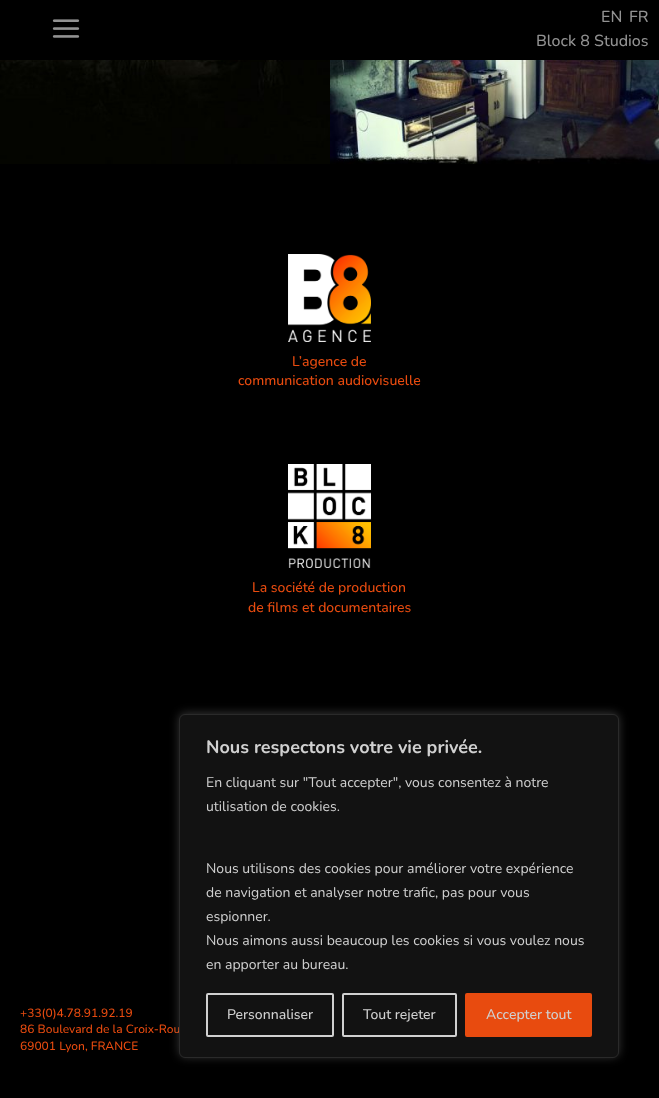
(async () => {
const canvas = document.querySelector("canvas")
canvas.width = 659
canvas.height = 1098
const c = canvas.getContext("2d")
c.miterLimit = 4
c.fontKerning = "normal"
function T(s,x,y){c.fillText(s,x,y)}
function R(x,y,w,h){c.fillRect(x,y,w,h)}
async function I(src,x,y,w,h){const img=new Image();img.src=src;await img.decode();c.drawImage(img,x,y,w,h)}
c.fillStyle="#000"
R(0,0,659,1098)
await I("1.png",52,19,28,19)
c.font="500 16px Nunito"
c.fillStyle="#929292"
T("EN",601,22)
T("FR",629,22)
T("Block 8 Studios",536,46)
await I("2.png",0,60,330,104)
await I("3.png",330,60,329,104)
await I("4.png",288,254,83,88)
c.font="500 14px Nunito"
c.fillStyle="#e84b0f"
T("L’agence de",292,366)
T("communication audiovisuelle",238,385)
await I("5.png",288,464,83,104)
T("La société de production",252,592)
T("de films et documentaires",248,612)
c.font="500 12px Nunito"
T("+33(0)4.78.91.92.19",20,1017)
T("86 Boulevard de la Croix-Rou",20,1033)
T("69001 Lyon, FRANCE",20,1050)
c.fillStyle="#acabab4d"
c.filter="blur(5px)"
c.beginPath()
c.roundRect(179,713,440,344,6)
c.fill()
c.filter="none"
c.fillStyle="#121212"
c.beginPath()
c.roundRect(179.5,714.5,439,343,5.5)
c.fill()
c.strokeStyle="#2a2a2a"
c.stroke()
c.font="bold 18px Nunito"
c.fillStyle="#d0d0d0"
T("Nous respectons votre vie privée.",206,753)
c.font="14px Nunito"
T("En cliquant sur \"Tout accepter\", vous consentez à notre",206,787)
T("utilisation de cookies.",206,811)
T("Nous utilisons des cookies pour améliorer votre expérience",206,873)
T("de navigation et analyser notre trafic, pas pour vous",206,897)
T("espionner.",206,921)
T("Nous aimons aussi beaucoup les cookies si vous voulez nous",206,945)
T("en apporter au bureau.",206,969)
c.beginPath()
c.roundRect(207,994,126,42,1)
c.strokeStyle="#d0d0d0"
c.lineWidth=2
c.stroke()
c.font="500 14px Nunito"
T("Personnaliser",227,1019)
c.beginPath()
c.roundRect(343,994,113,42,1)
c.stroke()
T("Tout rejeter",363,1019)
c.fillStyle="#e84b0f"
c.beginPath()
c.roundRect(466,994,125,42,1)
c.fill()
c.strokeStyle="#e84b0f"
c.stroke()
c.fillStyle="#d0d0d0"
T("Accepter tout",486,1019)
})()
